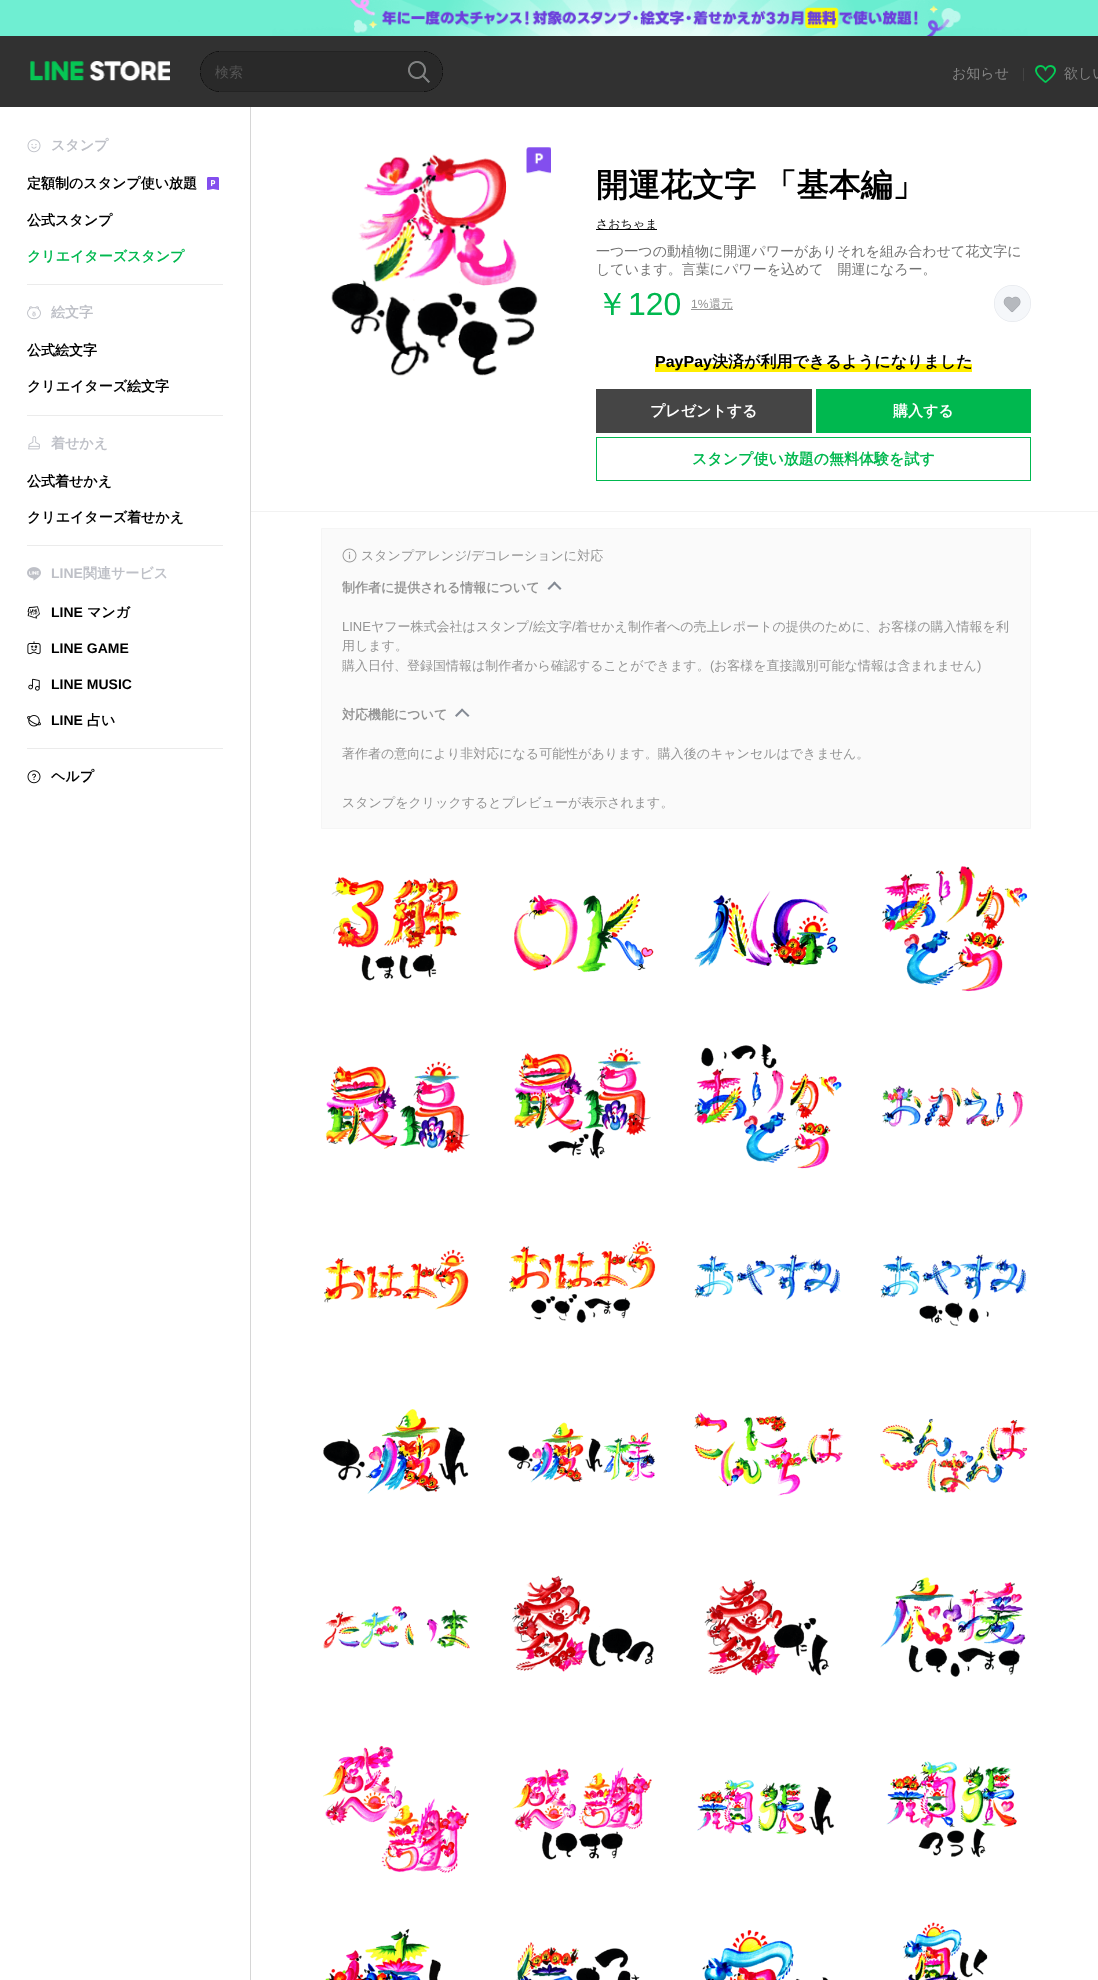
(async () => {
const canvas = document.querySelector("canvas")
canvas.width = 1098
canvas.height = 1980
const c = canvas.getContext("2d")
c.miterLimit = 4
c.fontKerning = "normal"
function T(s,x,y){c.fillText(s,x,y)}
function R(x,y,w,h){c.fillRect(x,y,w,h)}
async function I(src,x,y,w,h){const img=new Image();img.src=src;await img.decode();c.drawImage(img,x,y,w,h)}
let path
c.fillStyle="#fff"
R(0,0,1098,1980)
await I("1.png",0,0,1098,36)
c.fillStyle="#313131"
R(0,36,1098,71)
await I("2.png",30,61,140,20)
await I("3.png",200,51,243,41)
c.font="500 14px WenQuanYi Zen Hei"
c.fillStyle="#545454"
T("検索",215,77)
await I("4.png",408,61,22,22)
c.fillStyle="#848484"
T("お知らせ",952,78)
c.fillStyle="#444"
R(1023,68,1,13)
await I("5.png",1035,65,21,18)
c.fillStyle="#848484"
T("欲しい",1064,78)
await I("6.png",27,139,14,14)
c.font="bold 14px WenQuanYi Zen Hei"
c.fillStyle="#bec0c7"
T("スタンプ",51,150)
c.fillStyle="#000"
T("定額制のスタンプ使い放題",27,188)
await I("7.png",207,177,12,13)
T("公式スタンプ",27,225)
c.fillStyle="#00b84f"
T("クリエイターズスタンプ",27,261)
c.fillStyle="#ebebeb"
R(27,284,196,1)
await I("8.png",27,306,14,14)
c.fillStyle="#bec0c7"
T("絵文字",51,317)
c.fillStyle="#000"
T("公式絵文字",27,355)
T("クリエイターズ絵文字",27,391)
c.fillStyle="#ebebeb"
R(27,415,196,1)
await I("9.png",28,436,12,14)
c.fillStyle="#bec0c7"
T("着せかえ",51,448)
c.fillStyle="#000"
T("公式着せかえ",27,486)
T("クリエイターズ着せかえ",27,522)
c.fillStyle="#ebebeb"
R(27,545,196,1)
await I("10.png",27,567,14,14)
c.font="bold 14px Liberation Sans"
c.fillStyle="#bec0c7"
T("LINE",51,578)
c.font="bold 14px WenQuanYi Zen Hei"
T("関連サービス",83,578)
await I("11.png",27,606,13,13)
c.font="bold 14px Liberation Sans"
c.fillStyle="#000"
T("LINE",51,617)
c.font="bold 14px WenQuanYi Zen Hei"
T("マンガ",87,617)
await I("12.png",27,641,14,14)
c.font="bold 14px Liberation Sans"
T("LINE GAME",51,653)
await I("13.png",28,678,12,13)
T("LINE MUSIC",51,689)
await I("14.png",27,715,14,12)
T("LINE",51,725)
c.font="bold 14px WenQuanYi Zen Hei"
T("占い",87,725)
c.fillStyle="#ebebeb"
R(27,748,196,1)
await I("15.png",27,770,14,14)
c.fillStyle="#000"
T("ヘルプ",51,781)
c.fillStyle="#d6d6d6"
R(250,107,1,1873)
await I("16.png",331,154,207,222)
await I("17.png",526,147,25,27)
c.wordSpacing="-1px"
c.font="bold 32px WenQuanYi Zen Hei"
c.fillStyle="#000"
T("開運花文字 「基本編」",596,196)
R(596,229,61,1)
c.wordSpacing="0px"
c.font="500 12px WenQuanYi Zen Hei"
T("さおちゃま",596,228)
c.font="500 14px WenQuanYi Zen Hei"
c.fillStyle="#737373"
T("一つ一つの動植物に開運パワーがありそれを組み合わせて花文字に",596,256)
T("しています。言葉にパワーを込めて　開運になろー。",596,274)
c.font="500 32px WenQuanYi Zen Hei"
c.fillStyle="#00b84f"
T("￥",596,315)
c.font="32px Liberation Sans"
T("120",628,315)
c.font="12px Liberation Sans"
c.fillStyle="#949494"
T("1%",691,308)
R(691,309,42,1)
c.font="500 12px WenQuanYi Zen Hei"
T("還元",709,308)
await I("18.png",994,285,37,37)
c.fillStyle="#fe0"
R(655,364,317,8)
c.font="bold 16px Liberation Sans"
c.fillStyle="#000"
T("PayPay",655,367)
c.font="bold 16px WenQuanYi Zen Hei"
T("決済が利用できるようになりました",712,367)
c.fillStyle="#454545"
R(596,389,216,44)
c.font="bold 15px WenQuanYi Zen Hei"
c.fillStyle="#fff"
T("プレゼントする",650,416)
c.fillStyle="#00b84f"
R(816,389,215,44)
c.fillStyle="#fff"
T("購入する",893,416)
c.strokeStyle="#00b84f"
c.strokeRect(596.5,437.5,434,43)
c.fillStyle="#00b84f"
T("スタンプ使い放題の無料体験を試す",692,464)
c.fillStyle="#f2f2f2"
R(251,511,847,1)
c.fillStyle="#fafafa"
c.beginPath()
c.rect(321.5,528.5,709,300)
c.fill()
c.strokeStyle="#f5f5f5"
c.stroke()
await I("19.png",342,548,15,15)
c.font="500 13px WenQuanYi Zen Hei"
c.fillStyle="#949494"
T("スタンプアレンジ",361,560)
c.font="13px Liberation Sans"
T("/",467,560)
c.font="500 13px WenQuanYi Zen Hei"
T("デコレーションに対応",471,560)
c.font="bold 13px WenQuanYi Zen Hei"
T("制作者に提供される情報について",342,592)
c.fillStyle="#848a94"
path = new Path2D("M547.5 588.5l7-7l1.5 1.5l-7 7z")
c.fill(path)
path = new Path2D("M553 583l1.5-1.5l7 7l-1.5 1.5z")
c.fill(path)
c.font="13px Liberation Sans"
c.fillStyle="#949494"
T("LINE",342,631)
c.font="500 13px WenQuanYi Zen Hei"
T("ヤフー株式会社はスタンプ",371,631)
c.font="13px Liberation Sans"
T("/",529,631)
c.font="500 13px WenQuanYi Zen Hei"
T("絵文字",533,631)
c.font="13px Liberation Sans"
T("/",572,631)
c.font="500 13px WenQuanYi Zen Hei"
T("着せかえ制作者への売上レポートの提供のために、お客様の購入情報を利",575,631)
T("用します。",342,650)
T("購入日付、登録国情報は制作者から確認することができます。",342,670)
c.font="13px Liberation Sans"
T("(",710,670)
c.font="500 13px WenQuanYi Zen Hei"
T("お客様を直接識別可能な情報は含まれません",714,670)
c.font="13px Liberation Sans"
T(")",977,670)
c.font="bold 13px WenQuanYi Zen Hei"
T("対応機能について",342,719)
c.fillStyle="#848a94"
path = new Path2D("M455 715.5l7-7l1.5 1.5l-7 7z")
c.fill(path)
path = new Path2D("M461 710l1-1.5l7.5 7l-1.5 1.5z")
c.fill(path)
c.font="500 13px WenQuanYi Zen Hei"
c.fillStyle="#949494"
T("著作者の意向により非対応になる可能性があります。購入後のキャンセルはできません。",342,758)
T("スタンプをクリックするとプレビューが表示されます。",342,807)
await I("20.png",331,877,131,104)
await I("21.png",514,893,140,80)
await I("22.png",694,891,144,76)
await I("23.png",882,866,146,126)
await I("24.png",325,1061,145,92)
await I("25.png",514,1047,137,112)
await I("26.png",694,1044,148,125)
await I("27.png",882,1085,142,43)
await I("28.png",324,1249,145,61)
await I("29.png",509,1241,147,83)
await I("30.png",694,1254,147,46)
await I("31.png",880,1254,147,72)
await I("32.png",323,1409,146,85)
await I("33.png",508,1422,147,61)
await I("34.png",694,1412,149,84)
await I("35.png",880,1418,148,75)
await I("36.png",323,1606,147,43)
await I("37.png",512,1575,142,97)
await I("38.png",704,1579,125,97)
await I("39.png",880,1577,146,100)
await I("40.png",323,1745,147,128)
await I("41.png",512,1767,140,93)
await I("42.png",697,1779,138,56)
await I("43.png",886,1761,131,97)
await I("44.png",325,1928,116,52)
await I("45.png",516,1942,124,38)
await I("46.png",702,1930,127,50)
await I("47.png",903,1922,85,58)
})()
